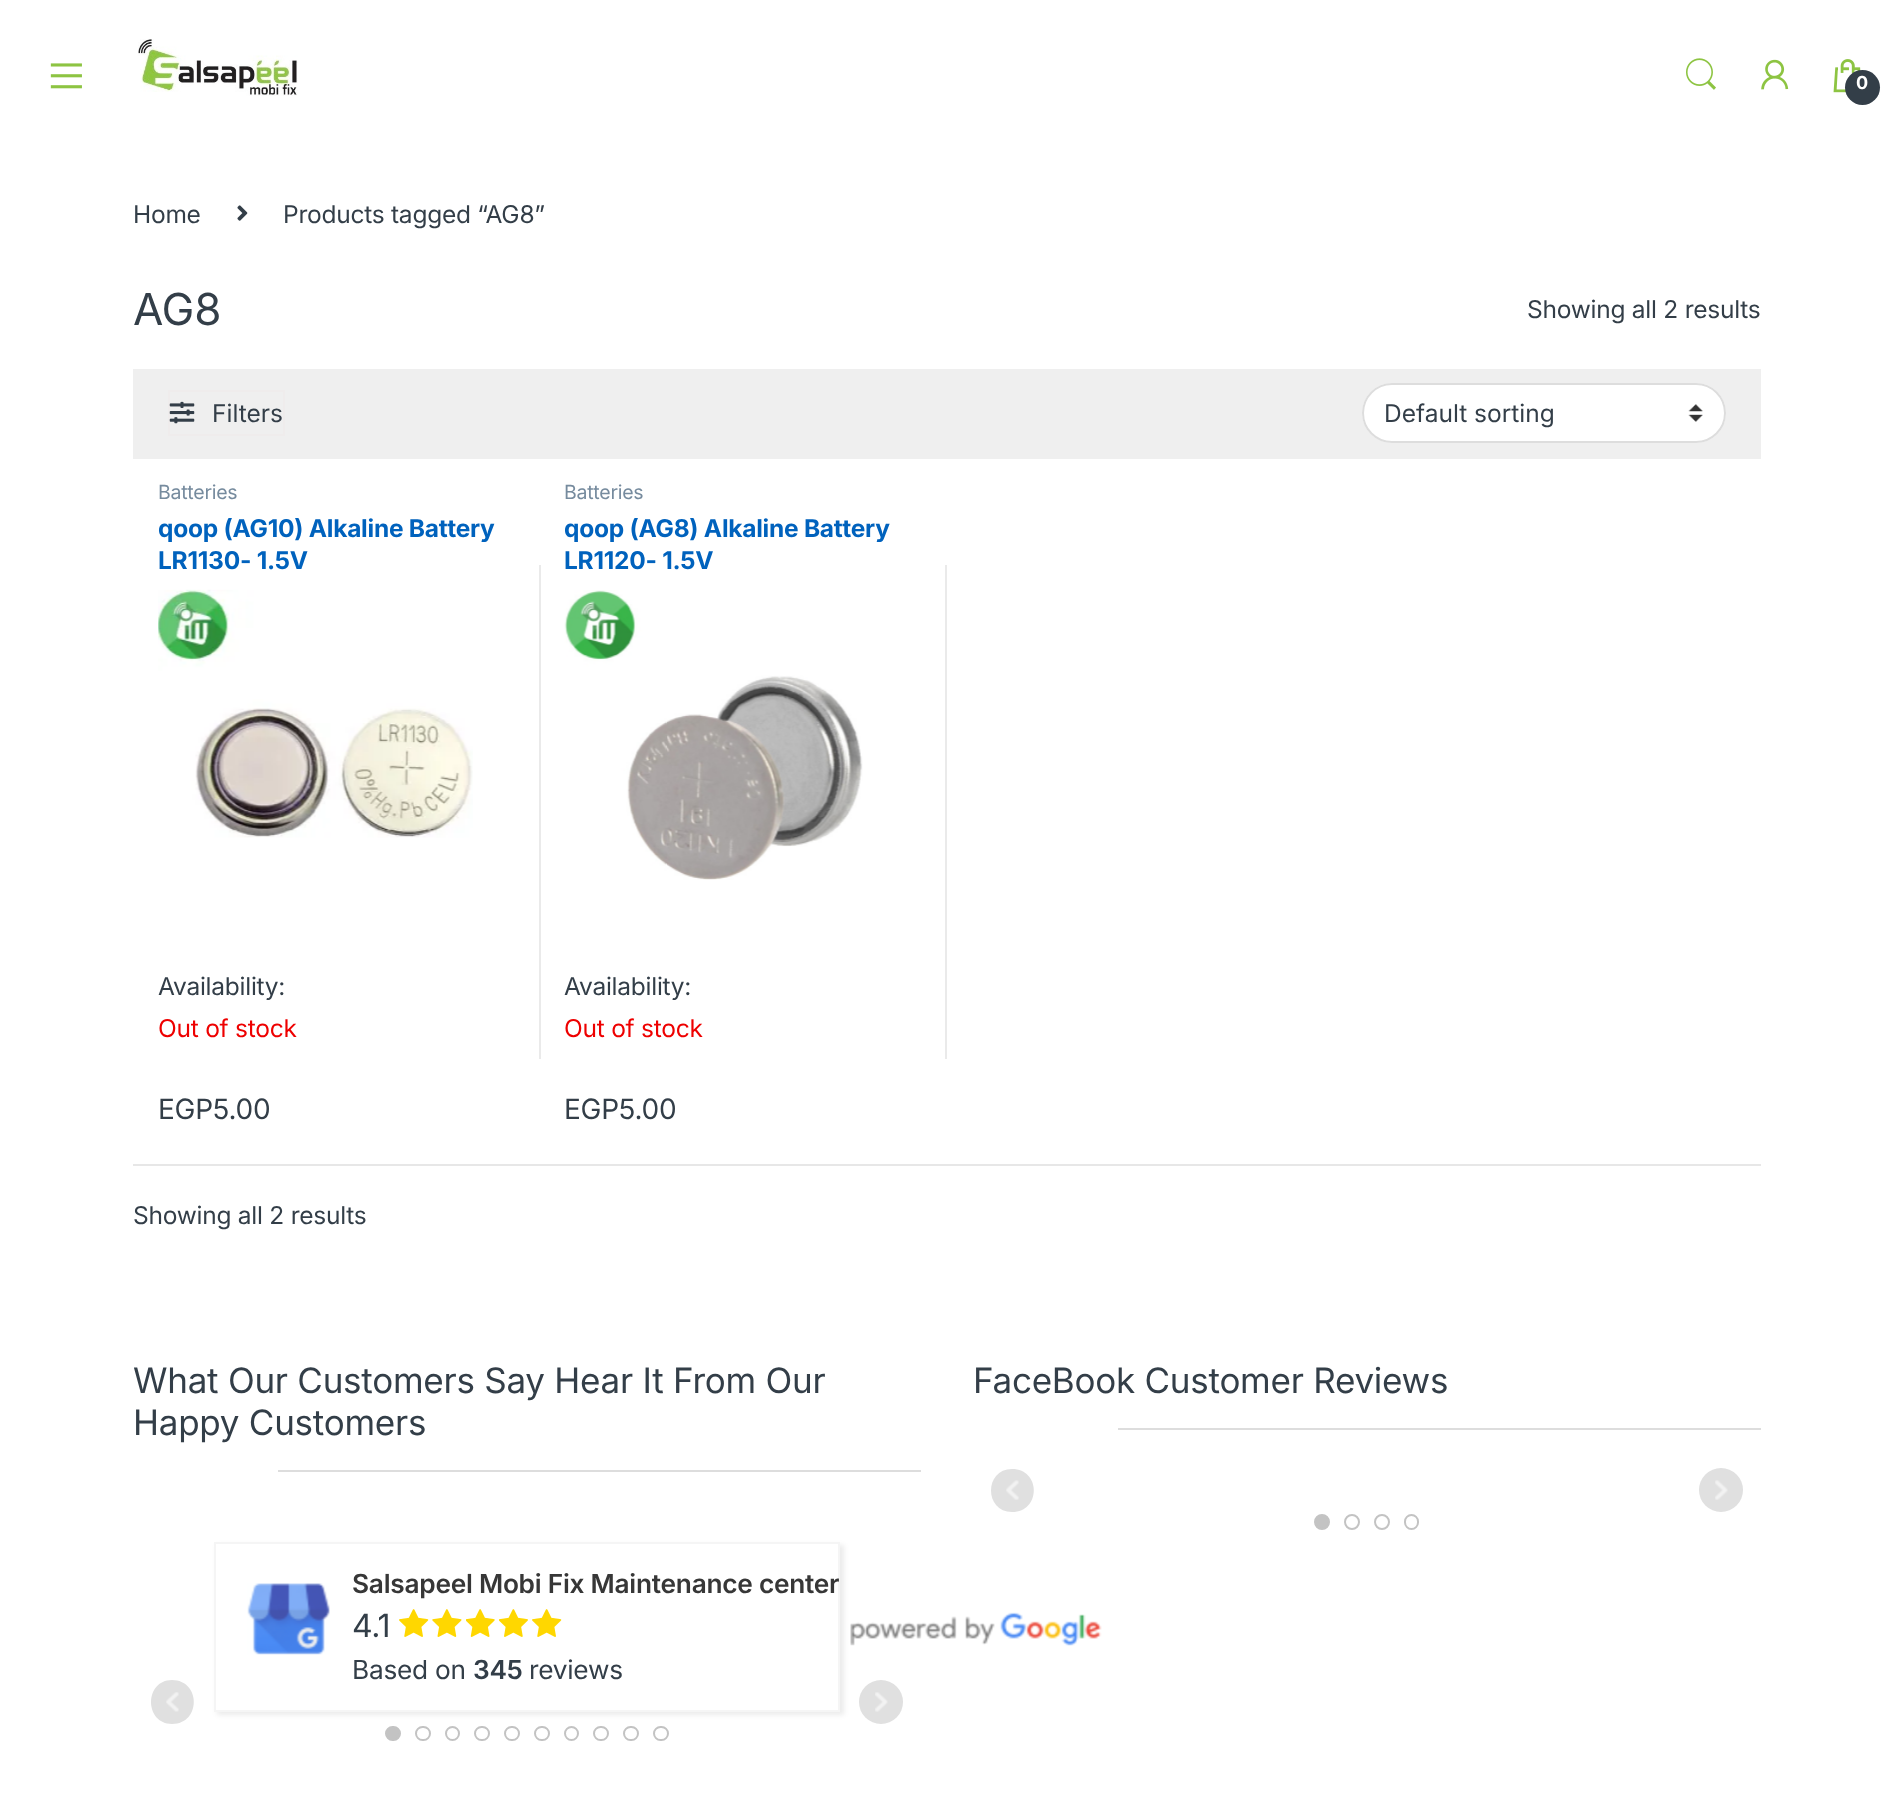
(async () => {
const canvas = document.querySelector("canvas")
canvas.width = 1892
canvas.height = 1801
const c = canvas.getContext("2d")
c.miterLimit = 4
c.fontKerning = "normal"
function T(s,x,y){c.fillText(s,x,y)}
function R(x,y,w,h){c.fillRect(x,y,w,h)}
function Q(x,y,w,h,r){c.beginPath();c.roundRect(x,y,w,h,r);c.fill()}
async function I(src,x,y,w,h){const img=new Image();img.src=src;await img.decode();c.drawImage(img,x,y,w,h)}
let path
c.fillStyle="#fff"
R(0,0,1892,1801)
await I("1.png",50,63,32,26)
await I("2.png",138,39,160,57)
await I("3.png",1686,58,30,32)
await I("4.png",1761,59,28,31)
await I("5.png",1833,59,28,34)
c.fillStyle="#333e48"
c.beginPath()
c.arc(1862.5,87.5,17.5,0,7)
c.fill()
c.letterSpacing="-0.25px"
c.font="bold 18px Inter"
c.fillStyle="#fff"
T("0",1856,89)
c.font="24.5px Inter"
c.fillStyle="#333e48"
T("Home",133,223)
await I("6.png",237,205,11,16)
T("Products tagged “AG8”",283,223)
c.font="44px Inter"
T("AG8",133,325)
c.font="24.5px Inter"
T("Showing all 2 results",1527,318)
c.fillStyle="#efefef"
R(133,369,1628,90)
c.strokeStyle="#efecec"
c.lineWidth=2
c.strokeRect(169,391,115,44)
await I("7.png",169,401,26,23)
c.letterSpacing="0px"
c.fillStyle="#333e48"
T("Filters",212,422)
c.fillStyle="#fff"
Q(1362,383,364,60,30)
await I("8.png",1688,404,15,18)
c.beginPath()
c.roundRect(1363,384,362,58,29)
c.strokeStyle="#ddd"
c.stroke()
c.fillStyle="#333e48"
T("Default sorting",1384,422)
c.letterSpacing="-0.25px"
c.font="19.5px Inter"
c.fillStyle="#768b9e"
T("Batteries",158,499)
c.font="bold 24.5px Inter"
c.fillStyle="#0062bd"
T("qoop (AG10) Alkaline Battery",158,537)
T("LR1130- 1.5V",158,569)
await I("9.png",158,589,315,249)
c.font="24.5px Inter"
c.fillStyle="#333e48"
T("Availability:",158,995)
c.fillStyle="#e00"
T("Out of stock",158,1037)
c.font="28px Inter"
c.fillStyle="#333e48"
T("EGP5.00",158,1119)
c.fillStyle="#eaeaea"
R(539,565,2,494)
c.font="19.5px Inter"
c.fillStyle="#768b9e"
T("Batteries",564,499)
c.font="bold 24.5px Inter"
c.fillStyle="#0062bd"
T("qoop (AG8) Alkaline Battery",564,537)
T("LR1120- 1.5V",564,569)
await I("10.png",564,590,299,290)
c.font="24.5px Inter"
c.fillStyle="#333e48"
T("Availability:",564,995)
c.fillStyle="#e00"
T("Out of stock",564,1037)
c.font="28px Inter"
c.fillStyle="#333e48"
T("EGP5.00",564,1119)
c.fillStyle="#eaeaea"
R(945,565,2,494)
c.fillStyle="#e7e7e7"
R(133,1164,1628,2)
c.font="24.5px Inter"
c.fillStyle="#333e48"
T("Showing all 2 results",133,1224)
c.fillStyle="#ddd"
R(278,1470,643,2)
c.font="35px Inter"
c.fillStyle="#333e48"
T("What Our Customers Say Hear It From Our",133,1393)
T("Happy Customers",133,1435)
c.fillStyle="#00000014"
c.filter="blur(2.5px)"
c.beginPath()
c.rect(217,1545,627,170)
c.fill()
c.filter="none"
c.fillStyle="#fff"
c.beginPath()
c.rect(215,1543,624,168)
c.fill()
c.strokeStyle="#f5f5f5"
c.stroke()
await I("11.png",247,1583,83,72)
c.font="600 26.25px Inter"
c.fillStyle="#373737"
T("Salsapeel Mobi Fix Maintenance center",352,1593)
c.font="32px Inter"
c.fillStyle="#333e48"
T("4.1",352,1637)
await I("12.png",399,1609,30,28)
await I("13.png",432,1609,30,28)
await I("14.png",466,1609,29,28)
await I("15.png",499,1609,29,28)
await I("12.png",532,1609,30,28)
c.font="26.25px Inter"
T("Based on",352,1679)
c.font="600 26.25px Inter"
T("345",473,1679)
c.font="26.25px Inter"
T("reviews",529,1679)
await I("16.png",850,1612,252,34)
c.fillStyle="#e0e0e0"
path = new Path2D("M172 1724c-28 0-28-44 0-44c29 0 29 44 0 44z")
c.fill(path)
await I("17.png",166,1692,13,20)
c.beginPath()
c.arc(881,1702,22,0,7)
c.fill()
await I("18.png",875,1692,13,20)
c.fillStyle="#c3c3c3"
c.beginPath()
c.roundRect(386,1727,14,13,6.5)
c.fill()
c.strokeStyle="#c3c3c3"
c.stroke()
c.beginPath()
c.roundRect(416,1727,14,13,6.5)
c.stroke()
c.beginPath()
c.arc(452.5,1733.5,6.5,0,7)
c.stroke()
c.beginPath()
c.roundRect(475,1727,14,13,6.5)
c.stroke()
c.beginPath()
c.roundRect(505,1727,14,13,6.5)
c.stroke()
c.beginPath()
c.roundRect(535,1727,14,13,6.5)
c.stroke()
c.beginPath()
c.arc(571.5,1733.5,6.5,0,7)
c.stroke()
c.beginPath()
c.roundRect(594,1727,14,13,6.5)
c.stroke()
c.beginPath()
c.roundRect(624,1727,14,13,6.5)
c.stroke()
c.beginPath()
c.roundRect(654,1727,14,13,6.5)
c.stroke()
c.fillStyle="#ddd"
R(1118,1428,643,2)
c.font="35px Inter"
c.fillStyle="#333e48"
T("FaceBook Customer Reviews",973,1393)
c.fillStyle="#e0e0e0"
path = new Path2D("M1012 1512c-28 0-28-43 0-43c29 0 29 43 0 43z")
c.fill(path)
await I("19.png",1006,1480,13,20)
c.beginPath()
c.arc(1721,1490,22,0,7)
c.fill()
await I("20.png",1715,1480,13,20)
c.fillStyle="#c3c3c3"
c.beginPath()
c.arc(1322,1522,7,0,7)
c.fill()
c.stroke()
c.beginPath()
c.arc(1352,1522,7,0,7)
c.stroke()
c.beginPath()
c.arc(1382,1522,7,0,7)
c.stroke()
c.beginPath()
c.roundRect(1405,1515,13,14,6.5)
c.stroke()
})()
